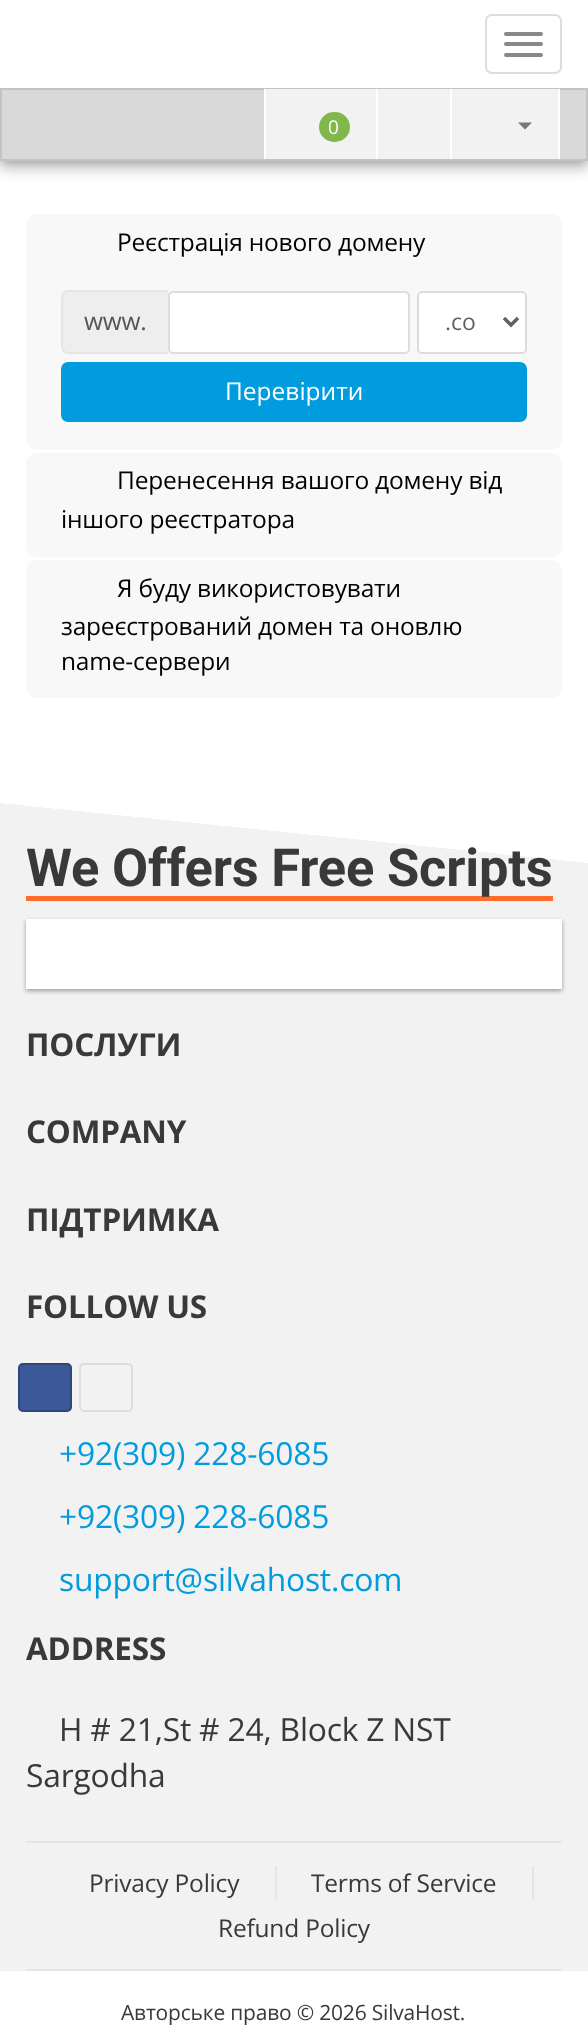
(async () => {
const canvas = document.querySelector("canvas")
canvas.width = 588
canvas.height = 2036
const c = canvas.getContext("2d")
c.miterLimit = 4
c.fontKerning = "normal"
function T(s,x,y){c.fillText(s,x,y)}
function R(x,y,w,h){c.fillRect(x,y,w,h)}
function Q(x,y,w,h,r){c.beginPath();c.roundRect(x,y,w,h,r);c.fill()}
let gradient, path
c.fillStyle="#fff"
R(0,0,588,2036)
c.fillStyle="#00000047"
c.filter="blur(7px)"
c.beginPath()
c.rect(0,7,588,161)
c.fill()
c.filter="none"
c.fillStyle="#00000024"
c.filter="blur(3.5px)"
c.beginPath()
c.rect(0,0,588,161)
c.fill()
c.filter="none"
c.fillStyle="#fff"
R(0,0,588,88)
c.beginPath()
c.roundRect(486,15,75,58,6)
c.strokeStyle="#ddd"
c.lineWidth=2
c.stroke()
c.fillStyle="#888"
Q(504,32,39,4,2)
Q(504,42,39,4,2)
Q(504,53,39,4,2)
c.fillStyle="#d9d9d9"
c.beginPath()
c.rect(1,89,586,71)
c.fill()
c.strokeStyle="#c3c3c3"
c.stroke()
c.fillStyle="#f2f2f2"
R(266,89,110,70)
c.fillStyle="#fff"
R(264,89,2,70)
c.fillStyle="#82b74c"
Q(319,112,31,30,15)
c.letterSpacing="-0.2px"
c.font="19px Open Sans"
c.fillStyle="#fff"
T("0",328,134)
c.fillStyle="#f2f2f2"
R(378,89,72,70)
c.fillStyle="#fff"
R(376,89,2,70)
R(558,89,2,70)
c.fillStyle="#f2f2f2"
R(452,89,106,70)
c.fillStyle="#fff"
R(450,89,2,70)
c.fillStyle="#777"
path = new Path2D("M518 122.5h14l-7 7z")
c.fill(path)
c.fillStyle="#f8f8f8"
Q(26,214,536,236,11)
c.font="24.5px Open Sans"
c.fillStyle="#000"
T("Реєстрація нового домену",117,251)
c.fillStyle="#eee"
c.beginPath()
c.roundRect(61,291,107,63,[7,0,0,7])
c.fill()
c.fillStyle="#e5e5e5"
path = new Path2D("M68 290h100v64h-100c-4 0-7-4-7-8v-48c0-4 3-8 7-8zm0 2h100v60h-100c-3 0-5-3-5-6v-48c0-3 2-6 5-6z")
c.fill(path,"evenodd")
c.fillStyle="#555"
T("www.",84,330)
c.fillStyle="#fff"
c.beginPath()
c.roundRect(169,292,240,61,4)
c.fill()
c.strokeStyle="#ddd"
c.stroke()
c.beginPath()
c.roundRect(418,292,108,61,4)
c.fill()
c.stroke()
path = new Path2D("M504 318l7 7l7-7")
c.strokeStyle="#626262"
c.lineWidth=3.5
c.stroke(path)
c.letterSpacing="0px"
c.font="23px Open Sans"
c.fillStyle="#626262"
T(".co",445,330)
c.fillStyle="#009cde"
c.beginPath()
c.roundRect(62,363,464,58,6)
c.fill()
c.strokeStyle="#009cde"
c.lineWidth=2
c.stroke()
c.font="24.5px Open Sans"
c.fillStyle="#fff"
T("Перевірити",225,400)
c.fillStyle="#f8f8f8"
Q(26,453,536,104,11)
c.letterSpacing="-0.2px"
c.fillStyle="#000"
T("Перенесення вашого домену від",117,489)
T("іншого реєстратора",61,528)
c.fillStyle="#f8f8f8"
Q(26,560,536,138,11)
c.fillStyle="#000"
T("Я буду використовувати",117,597)
T("зареєстрований домен та оновлю",61,635)
T("name-сервери",61,670)
c.fillStyle="#f2f2f2"
R(0,863,588,1108)
gradient = c.createLinearGradient(288,892,300,774)
gradient.addColorStop(.5,"#f2f2f2")
gradient.addColorStop(.5,"#fff")
c.fillStyle = gradient
R(0,803,584,60)
c.fillStyle="#ff6c2c"
R(26,896,527,5)
c.font="bold 52.5px Roboto"
c.fillStyle="#393939"
T("We Offers Free Scripts",26,886)
c.fillStyle="#0000003d"
c.filter="blur(2px)"
c.beginPath()
c.rect(26,921,536,70)
c.fill()
c.filter="none"
c.fillStyle="#0000001f"
c.filter="blur(2.5px)"
c.beginPath()
c.rect(26,921,536,70)
c.fill()
c.filter="none"
c.fillStyle="#fff"
R(26,919,536,70)
c.font="bold 31.5px Open Sans"
c.fillStyle="#393939"
T("ПОСЛУГИ",26,1056)
T("COMPANY",26,1143)
T("ПІДТРИМКА",26,1231)
T("FOLLOW US",26,1318)
c.fillStyle="#3b5998"
Q(18,1363,54,49,5)
c.beginPath()
c.roundRect(19,1364,52,47,4)
c.strokeStyle="#00000033"
c.stroke()
c.beginPath()
c.roundRect(80,1364,52,47,4)
c.strokeStyle="#ddd"
c.stroke()
c.font="31.8px Open Sans"
c.fillStyle="#009cde"
T("+92(309) 228-6085",59,1465)
T("+92(309) 228-6085",59,1528)
T("support@silvahost.com",59,1591)
c.font="bold 31.5px Open Sans"
c.fillStyle="#393939"
T("ADDRESS",26,1660)
c.font="31.8px Open Sans"
T("H # 21,St # 24, Block Z NST",59,1741)
T("Sargodha",26,1787)
c.fillStyle="#e5e5e5"
R(26,1841,536,2)
R(26,1969,536,2)
c.font="24.5px Open Sans"
c.fillStyle="#393939"
T("Privacy Policy",89,1892)
c.fillStyle="#e5e5e5"
R(275,1866,2,33)
c.fillStyle="#393939"
T("Terms of Service",311,1892)
c.fillStyle="#e5e5e5"
R(532,1866,2,33)
c.fillStyle="#393939"
T("Refund Policy",218,1937)
c.font="21px Open Sans"
T("Авторське право © 2026 SilvaHost.",121,2020)
})()
